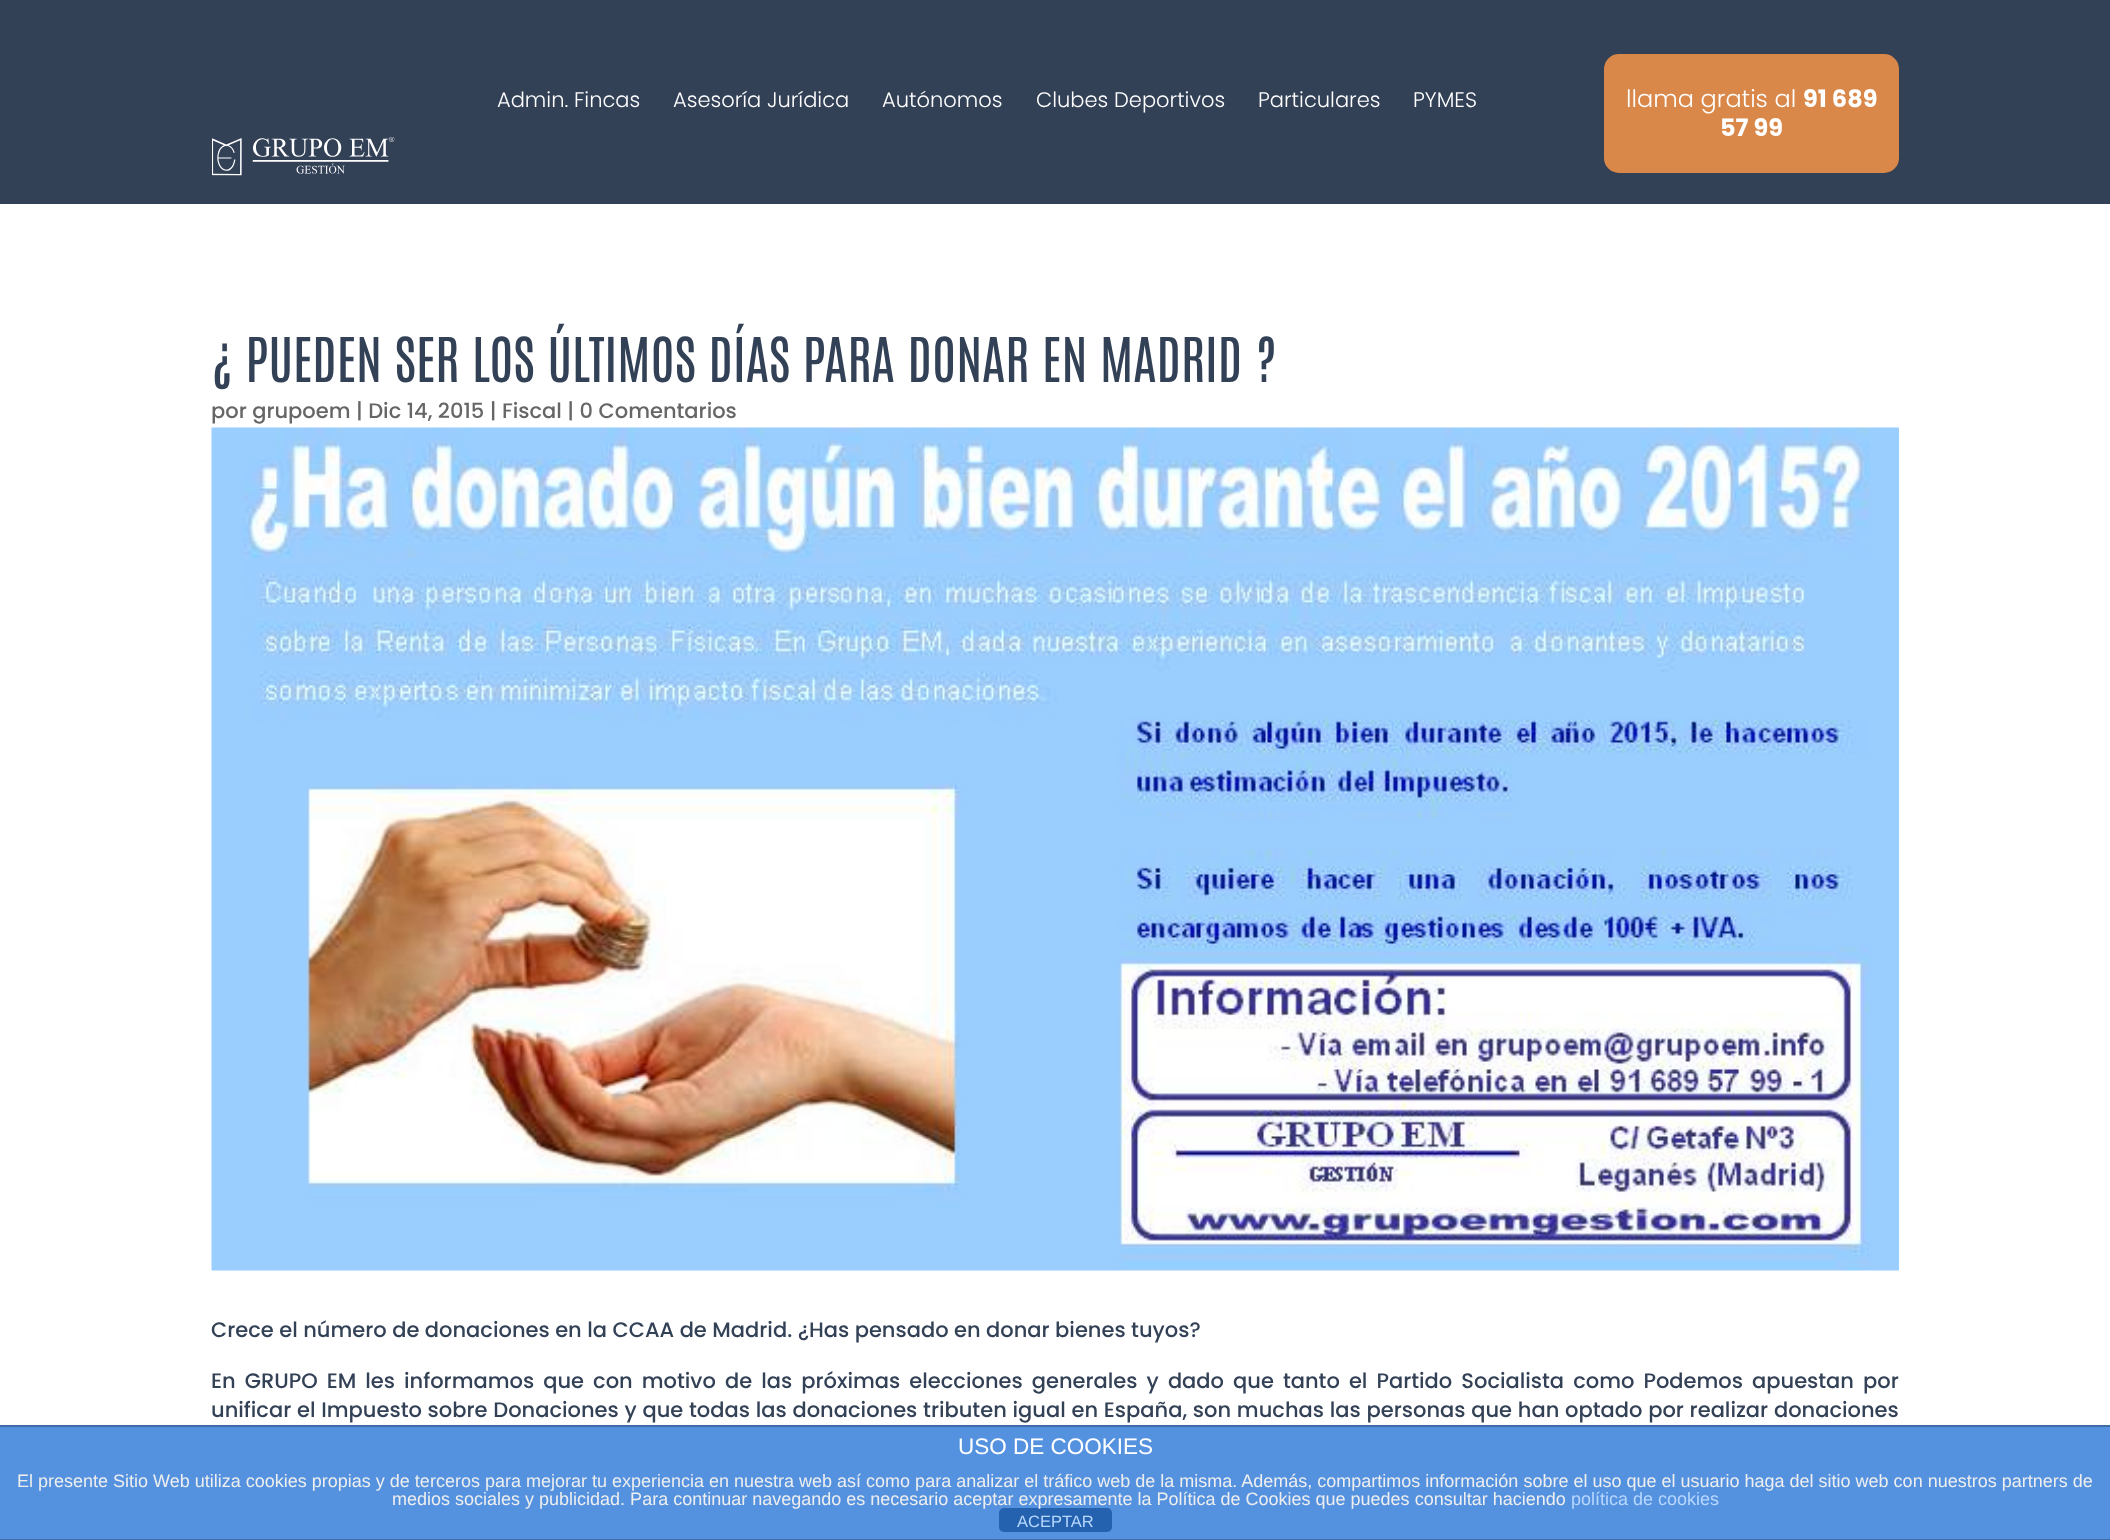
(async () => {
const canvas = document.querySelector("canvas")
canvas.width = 2110
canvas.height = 1540
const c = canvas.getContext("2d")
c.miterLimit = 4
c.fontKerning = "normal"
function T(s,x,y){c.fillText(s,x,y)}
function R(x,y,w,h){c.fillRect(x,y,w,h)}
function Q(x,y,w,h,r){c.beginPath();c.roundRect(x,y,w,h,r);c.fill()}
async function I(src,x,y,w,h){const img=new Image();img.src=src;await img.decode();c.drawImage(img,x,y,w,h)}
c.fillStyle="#fff"
R(0,0,2110,1540)
c.fillStyle="#334157"
R(0,0,2110,204)
c.font="300 21px Poppins"
c.fillStyle="#fff"
T("Admin. Fincas",497,107)
T("Asesoría Jurídica",673,107)
T("Autónomos",882,107)
T("Clubes Deportivos",1036,107)
T("Particulares",1258,107)
T("PYMES",1413,107)
await I("1.png",212,137,183,39)
c.fillStyle="#d98849"
Q(1604,54,295,119,15)
c.font="300 24px Poppins"
c.fillStyle="#fff"
T("llama gratis al",1626,107)
c.font="bold 24px Poppins"
T("91 689",1803,107)
T("57 99",1720,136)
c.font="52.5px Antonio"
c.fillStyle="#334157"
T("¿ PUEDEN SER LOS ÚLTIMOS DÍAS PARA DONAR EN MADRID ?",211,382)
c.font="500 21px Poppins"
c.fillStyle="#666"
T("por grupoem | Dic 14, 2015 | Fiscal | 0 Comentarios",211,418)
await I("2.png",211,427,1688,844)
c.fillStyle="#334157"
T("Crece el número de donaciones en la CCAA de Madrid. ¿Has pensado en donar bienes tuyos?",211,1337)
c.wordSpacing="3.6px"
T("En GRUPO EM les informamos que con motivo de las próximas elecciones generales y dado que tanto el Partido Socialista como Podemos apuestan por",211,1388)
c.wordSpacing="0.3px"
T("unificar el Impuesto sobre Donaciones y que todas las donaciones tributen igual en España, son muchas las personas que han optado por realizar donaciones",211,1417)
c.fillStyle="#5492e0"
R(0,1427,2110,112)
c.fillStyle="#3f6da7"
R(0,1425,2110,2)
R(0,1539,2110,1)
c.wordSpacing="0px"
c.font="22.5px Liberation Sans"
c.fillStyle="#fff"
T("USO DE COOKIES",958,1454)
c.font="18px Liberation Sans"
c.fillStyle="#eee"
T("El presente Sitio Web utiliza cookies propias y de terceros para mejorar tu experiencia en nuestra web así como para analizar el tráfico web de la misma. Además, compartimos información sobre el uso que el usuario haga del sitio web con nuestros partners de",17,1487)
c.fillStyle="#2462b0"
Q(999,1508,113,24,5)
c.fillStyle="#eee"
T("medios sociales y publicidad. Para continuar navegando es necesario aceptar expresamente la Política de Cookies que puedes consultar haciendo",392,1505)
c.fillStyle="#b7d7ff"
T("política de cookies",1571,1505)
c.font="16.5px Liberation Sans"
T("ACEPTAR",1017,1527)
})()
